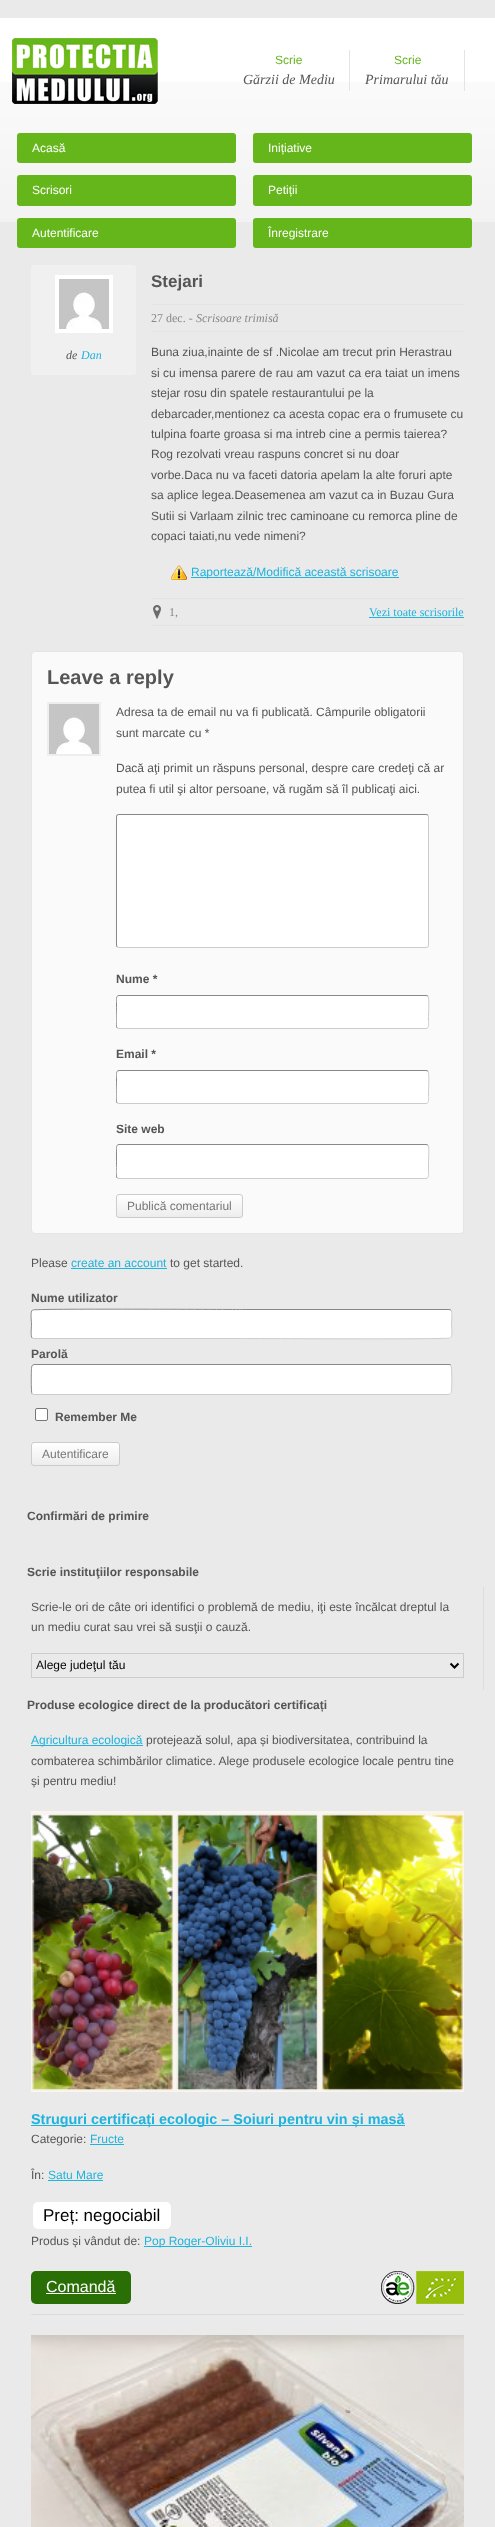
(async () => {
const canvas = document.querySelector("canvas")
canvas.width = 495
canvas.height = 2527
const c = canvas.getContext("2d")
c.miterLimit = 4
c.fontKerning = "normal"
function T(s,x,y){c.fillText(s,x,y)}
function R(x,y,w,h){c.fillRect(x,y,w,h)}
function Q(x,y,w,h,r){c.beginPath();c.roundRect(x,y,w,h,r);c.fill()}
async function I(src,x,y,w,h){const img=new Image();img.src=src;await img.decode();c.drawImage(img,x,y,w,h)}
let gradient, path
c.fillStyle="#eaeaea"
R(0,0,495,2527)
c.fillStyle="#fff"
R(0,18,495,64)
await I("1.png",0,82,495,140)
await I("2.png",12,38,146,66)
c.fillStyle="#e4e4e4"
R(349,50,1,41)
c.font="12px Liberation Sans"
c.fillStyle="#65b61b"
T("Scrie",275,64)
c.font="italic 14px Liberation Serif"
c.fillStyle="#555"
T("Gărzii de Mediu",243,84)
c.fillStyle="#e4e4e4"
R(464,50,1,41)
c.font="12px Liberation Sans"
c.fillStyle="#65b61b"
T("Scrie",394,64)
c.font="italic 14px Liberation Serif"
c.fillStyle="#555"
T("Primarului tău",365,84)
c.fillStyle="#65b61b"
Q(17,133,219,30,3)
c.font="12px Liberation Sans"
c.fillStyle="#fff"
T("Acasă",32,152)
c.fillStyle="#65b61b"
Q(253,133,219,30,3)
c.fillStyle="#fff"
T("Inițiative",268,152)
c.fillStyle="#65b61b"
Q(17,175,219,31,3)
c.fillStyle="#fff"
T("Scrisori",32,194)
c.fillStyle="#65b61b"
Q(253,175,219,31,3)
c.fillStyle="#fff"
T("Petiții",268,194)
c.fillStyle="#65b61b"
Q(17,218,219,30,3)
c.fillStyle="#fff"
T("Autentificare",32,237)
c.fillStyle="#65b61b"
Q(253,218,219,30,3)
c.fillStyle="#fff"
T("Înregistrare",268,237)
c.fillStyle="#f0f0f0"
Q(31,265,105,110,3)
c.strokeStyle="#fff"
c.lineWidth=4
c.strokeRect(57,277,54,54)
await I("3.png",59,279,50,50)
c.font="italic 12px Liberation Serif"
c.fillStyle="#555"
T("de",66,359)
c.fillStyle="#1fb3dd"
T("Dan",81,359)
c.font="bold 17px Liberation Sans"
c.fillStyle="#555"
T("Stejari",151,287)
c.fillStyle="#e4e4e4"
R(151,304,313,1)
R(151,331,313,1)
c.font="12px Liberation Serif"
c.fillStyle="#888"
T("27 dec. -",151,322)
c.font="italic 12px Liberation Serif"
T("Scrisoare trimisă",196,322)
c.font="12px Liberation Sans"
c.fillStyle="#555"
T("Buna ziua,inainte de sf .Nicolae am trecut prin Herastrau",151,356)
T("si cu imensa parere de rau am vazut ca era taiat un imens",151,377)
T("stejar rosu din spatele restaurantului pe la",151,397)
T("debarcader,mentionez ca acesta copac era o frumusete cu",151,418)
T("tulpina foarte groasa si ma intreb cine a permis taierea?",151,438)
T("Rog rezolvati vreau raspuns concret si nu doar",151,458)
T("vorbe.Daca nu va faceti datoria apelam la alte foruri apte",151,479)
T("sa aplice legea.Deasemenea am vazut ca in Buzau Gura",151,499)
T("Sutii si Varlaam zilnic trec caminoane cu remorca pline de",151,520)
T("copaci taiati,nu vede nimeni?",151,540)
await I("4.png",171,565,16,15)
c.fillStyle="#1fb3dd"
R(191,577,208,1)
T("Raportează/Modifică această scrisoare",191,576)
c.fillStyle="#e4e4e4"
R(151,598,313,1)
R(151,625,313,1)
await I("5.png",153,605,8,14)
c.font="12px Liberation Serif"
c.fillStyle="#888"
T("1,",169,616)
c.fillStyle="#1fb3dd"
T("Vezi toate scrisorile",369,616)
R(369,617,95,1)
c.fillStyle="#fafafa"
c.beginPath()
c.roundRect(31.5,651.5,432,582,3.5)
c.fill()
c.strokeStyle="#e5e5e5"
c.lineWidth=1
c.stroke()
c.font="bold 20px Liberation Sans"
c.fillStyle="#555"
T("Leave a reply",47,684)
c.strokeStyle="#eee"
c.lineWidth=2
c.strokeRect(48,703,52,52)
await I("3.png",49,704,50,50)
c.font="12px Liberation Sans"
T("Adresa ta de email nu va fi publicată. Câmpurile obligatorii",116,716)
T("sunt marcate cu *",116,737)
T("Dacă aţi primit un răspuns personal, despre care credeţi că ar",116,772)
T("putea fi util şi altor persoane, vă rugăm să îl publicaţi aici.",116,793)
c.fillStyle="#fff"
Q(116,814,313,134,3)
path = new Path2D("M428 815l.5 2v128l-.5 2l-2 .5h-307l-2-.5")
c.strokeStyle="#ccc"
c.lineWidth=1
c.stroke(path)
path = new Path2D("M117 947l-.5-2v-128l.5-2l2-.5h307l2 .5")
c.strokeStyle="#888"
c.stroke(path)
c.font="bold 12px Liberation Sans"
c.fillStyle="#555"
T("Nume *",116,983)
c.fillStyle="#fff"
Q(116,995,313,34,3)
path = new Path2D("M428 996c1.5 2 .5 17.5 .5 20.5v5c0 1.5 1 7-2.5 7h-307l-2-.5")
c.strokeStyle="#ccc"
c.stroke(path)
c.save()
c.beginPath()
c.rect(116,702,332,516)
c.clip()
path = new Path2D("M117 1028c-1.5-2-.5-17.5-.5-20.5v-5c0-1.5-1-7 2.5-7h307l2 .5")
c.strokeStyle="#888"
c.stroke(path)
c.restore()
c.fillStyle="#555"
T("Email *",116,1058)
c.fillStyle="#fff"
Q(116,1070,313,34,3)
path = new Path2D("M428 1071c1.5 2 .5 17.5 .5 20.5v5c0 1.5 1 7-2.5 7h-307l-2-.5")
c.stroke(path)
c.save()
c.beginPath()
c.rect(116,702,332,516)
c.clip()
path = new Path2D("M117 1103c-1.5-2-.5-17.5-.5-20.5v-5c0-1.5-1-7 2.5-7h307l2 .5")
c.strokeStyle="#888"
c.stroke(path)
c.restore()
c.fillStyle="#555"
T("Site web",116,1133)
c.fillStyle="#fff"
Q(116,1144,313,35,3)
path = new Path2D("M428 1145c1.5 2 .5 13.5 .5 16.5v9.5c0 2 1 7.5-2.5 7.5h-307l-2-.5")
c.stroke(path)
c.save()
c.beginPath()
c.rect(116,702,332,516)
c.clip()
path = new Path2D("M117 1178c-1.5-2-.5-13.5-.5-16.5v-9.5c0-2-1-7.5 2.5-7.5h307l2 .5")
c.strokeStyle="#888"
c.stroke(path)
c.restore()
c.save()
c.beginPath()
c.roundRect(116,1194,127,24,3)
c.clip()
gradient = c.createLinearGradient(180,1195,180,1217)
gradient.addColorStop(0,"#fff")
gradient.addColorStop(1,"#ededed")
c.fillStyle = gradient
R(116,1195,127,22)
c.restore()
c.beginPath()
c.roundRect(116.5,1194.5,126,23,2.5)
c.stroke()
c.font="12px Liberation Sans"
c.fillStyle="#777"
T("Publică comentariul",127,1210)
c.fillStyle="#555"
T("Please",31,1267)
c.fillStyle="#1fb3dd"
T("create an account",71,1267)
R(71,1268,96,1)
c.fillStyle="#555"
T("to get started.",170,1267)
c.font="bold 12px Liberation Sans"
T("Nume utilizator",31,1302)
c.fillStyle="#fff"
Q(31,1309,421,30,3)
path = new Path2D("M451 1310c1.5 2 .5 11.5 .5 14c0 2.5 1.5 12.5-1 14c-2 1.5-193 .5-209 .5h-207.5l-2-.5")
c.stroke(path)
path = new Path2D("M32 1338c-1.5-2-.5-11.5-.5-14c0-2.5-1.5-12.5 1-14c2-1.5 193-.5 209-.5h207.5l2 .5")
c.strokeStyle="#888"
c.stroke(path)
c.fillStyle="#555"
T("Parolă",31,1358)
c.fillStyle="#fff"
Q(31,1364,421,31,3)
path = new Path2D("M451 1365c1 1.5 1 27 0 28.5l-2 1h-415l-2-.5")
c.strokeStyle="#ccc"
c.stroke(path)
path = new Path2D("M32 1394c-1-1.5-1-27 0-28.5l2-1h415l2 .5")
c.strokeStyle="#888"
c.stroke(path)
c.beginPath()
c.roundRect(35.5,1408.5,12,12,1.5)
c.fill()
c.strokeStyle="#767676"
c.stroke()
c.fillStyle="#555"
T("Remember Me",55,1421)
c.save()
c.beginPath()
c.roundRect(31,1442,89,24,3)
c.clip()
gradient = c.createLinearGradient(76,1443,76,1465)
gradient.addColorStop(0,"#fff")
gradient.addColorStop(1,"#ededed")
c.fillStyle = gradient
R(31,1443,89,22)
c.restore()
c.beginPath()
c.roundRect(31.5,1442.5,88,23,2.5)
c.strokeStyle="#ccc"
c.stroke()
c.font="12px Liberation Sans"
c.fillStyle="#777"
T("Autentificare",42,1458)
c.font="bold 12px Liberation Sans"
c.fillStyle="#555"
T("Confirmări de primire",27,1520)
T("Scrie instituţiilor responsabile",27,1576)
c.fillStyle="#ddd"
R(483,1587,1,103)
c.font="12px Liberation Sans"
c.fillStyle="#555"
T("Scrie-le ori de câte ori identifici o problemă de mediu, iţi este încălcat dreptul la",31,1611)
T("un mediu curat sau vrei să susţii o cauză.",31,1631)
c.strokeRect(31.5,1653.5,432,24)
path = new Path2D("M450.5 1663.5l4 4l4-4")
c.strokeStyle="#000"
c.lineWidth=2
c.stroke(path)
c.fillStyle="#000"
T("Alege judeţul tău",36,1669)
c.font="bold 12px Liberation Sans"
c.fillStyle="#555"
T("Produse ecologice direct de la producători certificați",27,1709)
c.fillStyle="#1fb3dd"
R(31,1745,112,1)
c.font="12px Liberation Sans"
T("Agricultura ecologică",31,1744)
c.fillStyle="#555"
T("protejează solul, apa și biodiversitatea, contribuind la",146,1744)
T("combaterea schimbărilor climatice. Alege produsele ecologice locale pentru tine",31,1765)
T("și pentru mediu!",31,1785)
c.fillStyle="#ddd"
R(31,2314,433,1)
await I("6.png",31,1811,433,281)
c.fillStyle="#1fb3dd"
R(31,2125,374,1)
c.font="bold 14.4px Liberation Sans"
T("Struguri certificați ecologic – Soiuri pentru vin și masă",31,2124)
c.font="12px Liberation Sans"
c.fillStyle="#555"
T("Categorie:",31,2143)
c.fillStyle="#1fb3dd"
T("Fructe",90,2143)
R(90,2144,34,1)
c.fillStyle="#555"
T("În:",31,2179)
c.fillStyle="#1fb3dd"
T("Satu Mare",48,2179)
R(48,2180,55,1)
c.fillStyle="#fff"
Q(33,2202,138,27,5)
c.font="17px Liberation Sans"
c.fillStyle="#000"
T("Preț: negociabil",43,2221)
c.font="12px Liberation Sans"
c.fillStyle="#555"
T("Produs și vândut de:",31,2245)
c.fillStyle="#1fb3dd"
R(144,2246,108,1)
T("Pop Roger-Oliviu I.I.",144,2245)
c.fillStyle="#2a6e06"
Q(31,2271,100,33,5)
c.font="16px Liberation Sans"
c.fillStyle="#fff"
T("Comandă",46,2292)
R(46,2293,70,1)
await I("7.png",381,2271,83,33)
await I("8.png",31,2335,433,192)
})()
